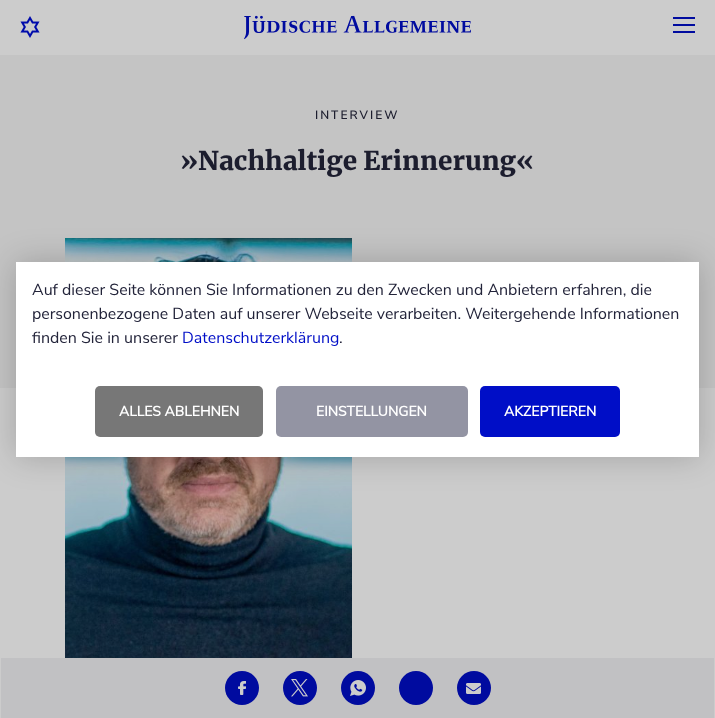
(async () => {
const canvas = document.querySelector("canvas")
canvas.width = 715
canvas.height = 718
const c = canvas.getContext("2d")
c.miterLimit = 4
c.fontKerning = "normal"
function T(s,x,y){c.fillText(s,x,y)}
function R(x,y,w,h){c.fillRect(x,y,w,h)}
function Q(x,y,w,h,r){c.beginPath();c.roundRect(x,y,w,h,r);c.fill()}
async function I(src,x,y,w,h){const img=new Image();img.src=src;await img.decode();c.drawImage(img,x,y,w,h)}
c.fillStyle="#ccc"
R(0,0,715,718)
await I("1.png",20,16,20,22)
await I("2.png",244,15,227,25)
c.fillStyle="#000b9f"
R(673,17,22,2)
R(673,24,22,2)
R(673,31,22,2)
c.fillStyle="#c4c4c4"
R(0,55,715,333)
c.letterSpacing="2px"
c.font="600 12px Nunito Sans"
c.fillStyle="#1c1d2e"
T("INTERVIEW",315,119)
c.letterSpacing="0px"
c.font="900 26px Merriweather"
T("»Nachhaltige Erinnerung«",180,170)
await I("3.png",65,238,287,420)
c.fillStyle="#c1c1c3"
R(1,658,713,60)
c.fillStyle="#000b9f"
c.beginPath()
c.arc(242,688,17,0,7)
c.fill()
await I("4.png",238,681,8,14)
c.beginPath()
c.arc(300,688,17,0,7)
c.fill()
await I("5.png",291,679,17,18)
c.beginPath()
c.arc(358,688,17,0,7)
c.fill()
await I("6.png",350,680,16,16)
c.beginPath()
c.arc(416,688,17,0,7)
c.fill()
c.beginPath()
c.arc(474,688,17,0,7)
c.fill()
await I("7.png",466,683,15,11)
c.fillStyle="#00000033"
c.filter="blur(16px)"
c.beginPath()
c.rect(16,262,683,195)
c.fill()
c.filter="none"
c.fillStyle="#fff"
R(16,262,683,195)
c.font="16px Nunito Sans"
c.fillStyle="#23243a"
T("Auf dieser Seite können Sie Informationen zu den Zwecken und Anbietern erfahren, die",32,295)
T("personenbezogene Daten auf unserer Webseite verarbeiten. Weitergehende Informationen",32,319)
T("finden Sie in unserer",32,343)
c.fillStyle="#000ec7"
T("Datenschutzerklärung",182,343)
c.fillStyle="#23243a"
T(".",339,343)
c.fillStyle="#777"
Q(95,386,168,51,5)
c.font="bold 14px Nunito Sans"
c.fillStyle="#fff"
T("ALLES ABLEHNEN",119,416)
c.fillStyle="#9394a3"
Q(276,386,192,51,5)
c.fillStyle="#fff"
T("EINSTELLUNGEN",316,416)
c.fillStyle="#000ec7"
Q(480,386,140,51,5)
c.fillStyle="#fff"
T("AKZEPTIEREN",504,416)
})()
